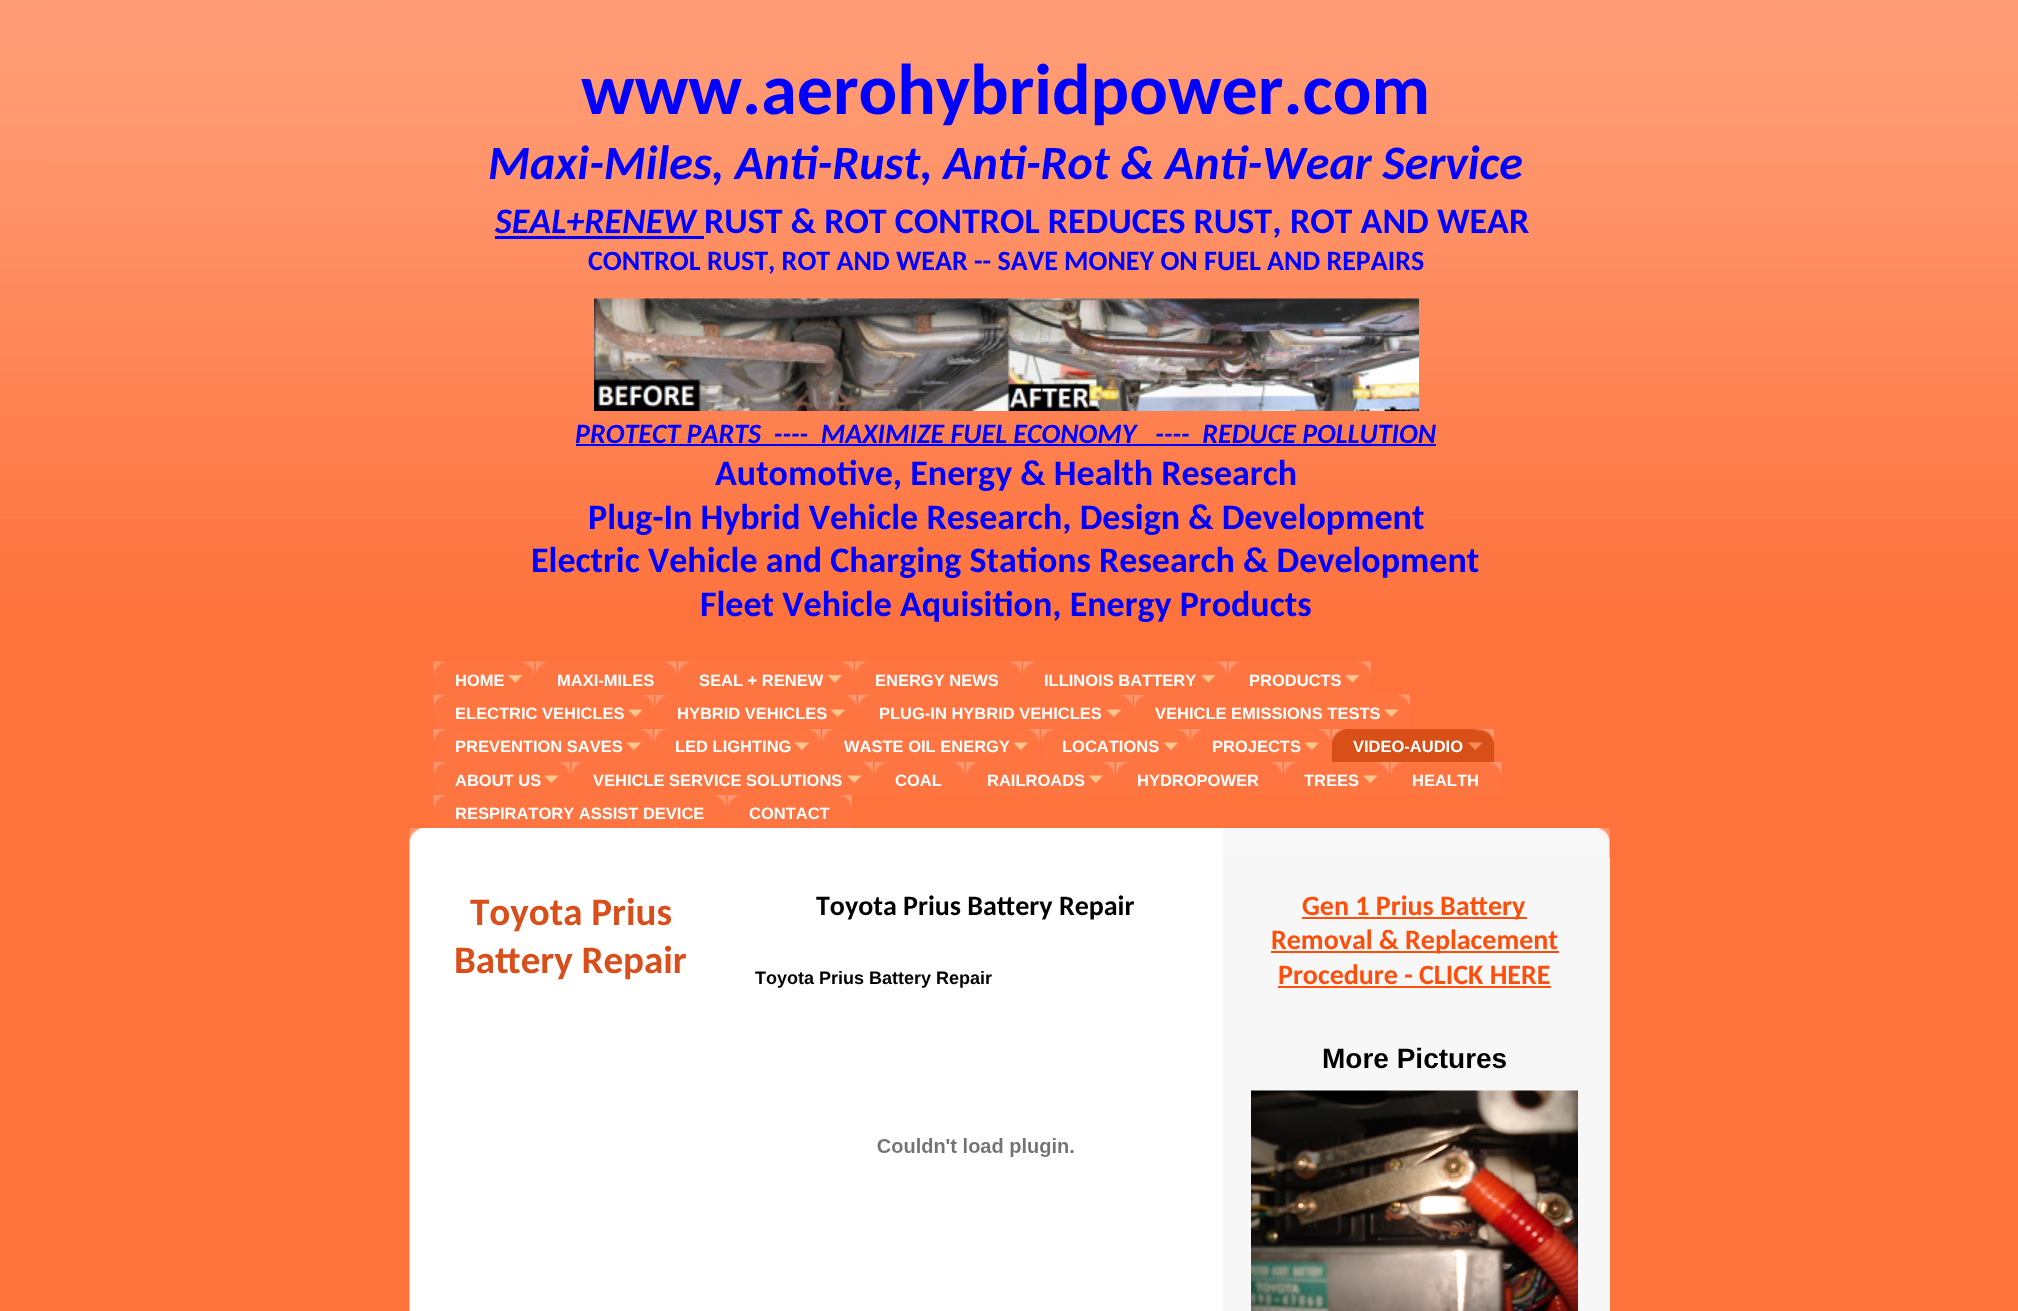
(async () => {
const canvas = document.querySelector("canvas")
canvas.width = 2018
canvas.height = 1311
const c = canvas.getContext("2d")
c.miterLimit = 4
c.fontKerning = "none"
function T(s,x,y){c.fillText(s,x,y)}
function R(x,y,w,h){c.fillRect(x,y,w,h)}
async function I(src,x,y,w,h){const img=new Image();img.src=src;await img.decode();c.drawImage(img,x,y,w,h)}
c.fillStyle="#fe723c"
R(0,0,2018,1311)
await I("1.png",0,0,2018,600)
c.font="bold 72px Carlito"
c.fillStyle="#00f"
T("www.aerohybridpower.com",581,114)
c.font="italic bold 48px Carlito"
T("Maxi-Miles, Anti-Rust, Anti-Rot & Anti-Wear Service",488,179)
c.font="italic bold 36px Carlito"
T("SEAL+RENEW",495,233)
c.font="bold 36px Carlito"
T("RUST & ROT CONTROL REDUCES RUST,",704,233)
T("ROT AND WEAR",1290,233)
R(495,236,209,3)
c.font="bold 28px Carlito"
T("CONTROL RUST, ROT AND WEAR -- SAVE",588,270)
T("MONEY ON FUEL AND REPAIRS",1064,270)
await I("2.png",594,298,825,113)
c.font="italic bold 28px Carlito"
T("PROTECT PARTS  ----  MAXIMIZE FUEL ECONOMY   ----  REDUCE P",575,443)
R(576,444,860,2)
T("OLLUTION",1317,443)
c.font="bold 36px Carlito"
T("Automotive, Energy & Health Research",715,485)
T("Plug-In Hybrid Vehicle Research, Design & Development",588,529)
T("Electric Vehicle and Charging Stations Research & Development",531,572)
T("Fleet Vehicle Aquisition, Energy Products",700,616)
await I("3.png",409,828,1201,30)
await I("16.png",433,694,23,35)
await I("4.png",433,661,23,34)
c.fillStyle="#fe7541"
R(456,662,78,33)
await I("5.png",520,661,14,14)
c.font="bold 16.5px Liberation Sans"
c.fillStyle="#fff"
T("HOME",455,686)
await I("6.png",508,674,15,9)
await I("7.png",535,661,23,33)
await I("16.png",655,694,23,35)
c.fillStyle="#fe7541"
R(549,662,128,33)
await I("8.png",663,661,14,13)
c.fillStyle="#fff"
T("MAXI-MILES",557,686)
await I("9.png",678,661,22,33)
c.fillStyle="#fe7541"
R(678,695,179,33)
await I("8.png",843,694,14,13)
R(692,662,162,33)
await I("8.png",840,661,14,13)
c.fillStyle="#fff"
T("SEAL + RENEW",699,686)
await I("10.png",827,674,15,9)
await I("20.png",858,694,22,35)
await I("11.png",855,661,22,34)
c.fillStyle="#fe7541"
R(877,662,145,33)
await I("8.png",1008,661,14,13)
c.fillStyle="#fff"
T("ENERGY NEWS",875,686)
await I("12.png",1023,661,22,33)
c.fillStyle="#fe7541"
R(1037,662,190,33)
await I("13.png",1214,661,13,14)
c.fillStyle="#fff"
T("ILLINOIS BATTERY",1044,686)
await I("14.png",1201,674,15,9)
await I("15.png",1228,661,23,33)
c.fillStyle="#fe7541"
R(1242,662,129,33)
await I("13.png",1358,661,13,14)
c.fillStyle="#fff"
T("PRODUCTS",1249,686)
await I("14.png",1345,674,15,9)
c.fillStyle="#fe7541"
R(456,695,198,33)
await I("17.png",641,695,13,13)
c.fillStyle="#fff"
T("ELECTRIC VEHICLES",455,719)
await I("18.png",628,709,15,9)
T("HYBRID VEHICLES",677,719)
await I("19.png",830,709,15,9)
c.fillStyle="#fe7541"
R(880,695,253,33)
await I("21.png",1119,695,14,12)
c.fillStyle="#fff"
T("PLUG-IN HYBRID VEHICLES",879,719)
await I("22.png",1106,709,15,9)
await I("23.png",1134,695,22,34)
c.fillStyle="#fe7541"
R(1156,695,254,33)
await I("13.png",1397,694,13,14)
c.fillStyle="#fff"
T("VEHICLE EMISSIONS TESTS",1155,719)
await I("18.png",1384,709,15,9)
await I("24.png",433,729,14,33)
c.fillStyle="#fe7541"
R(447,729,206,33)
await I("25.png",640,729,13,13)
c.fillStyle="#fff"
T("PREVENTION SAVES",455,752)
await I("19.png",626,742,15,9)
await I("26.png",654,729,14,33)
c.fillStyle="#fe7541"
R(668,729,153,33)
await I("25.png",808,729,13,13)
c.fillStyle="#fff"
T("LED LIGHTING",675,752)
await I("19.png",794,742,15,9)
await I("26.png",822,729,14,33)
c.fillStyle="#fe7541"
R(836,729,204,33)
await I("25.png",1027,729,13,13)
c.fillStyle="#fff"
T("WASTE OIL ENERGY",844,752)
await I("19.png",1013,742,15,9)
await I("27.png",1041,729,14,33)
c.fillStyle="#fe7541"
R(1055,729,135,33)
await I("28.png",1177,729,13,13)
c.fillStyle="#fff"
T("LOCATIONS",1062,752)
await I("22.png",1163,742,15,9)
await I("27.png",1191,729,14,33)
c.fillStyle="#fe7541"
R(1205,729,126,33)
await I("25.png",1318,729,13,13)
c.fillStyle="#fff"
T("PROJECTS",1212,752)
await I("19.png",1304,742,15,9)
await I("29.png",1332,729,14,33)
c.fillStyle="#d84f18"
R(1346,729,148,33)
await I("30.png",1473,729,21,14)
c.fillStyle="#fff"
T("VIDEO-AUDIO",1353,752)
await I("31.png",1468,742,15,9)
await I("24.png",433,762,14,33)
c.fillStyle="#fe7541"
R(447,762,123,33)
await I("32.png",557,762,13,13)
c.fillStyle="#fff"
T("ABOUT US",455,786)
await I("18.png",544,775,15,9)
await I("24.png",571,762,14,33)
c.fillStyle="#fe7541"
R(585,762,288,33)
await I("33.png",860,762,13,13)
c.fillStyle="#fff"
T("VEHICLE SERVICE SOLUTIONS",593,786)
await I("34.png",847,775,15,9)
await I("35.png",874,762,14,33)
c.fillStyle="#fe7541"
R(888,762,77,33)
await I("25.png",952,762,13,13)
c.fillStyle="#fff"
T("COAL",895,786)
await I("26.png",966,762,14,33)
c.fillStyle="#fe7541"
R(980,762,135,33)
await I("28.png",1102,762,13,13)
c.fillStyle="#fff"
T("RAILROADS",987,786)
await I("22.png",1088,775,15,9)
await I("36.png",1116,762,14,33)
c.fillStyle="#fe7541"
R(1130,762,153,33)
await I("37.png",1270,762,13,13)
c.fillStyle="#fff"
T("HYDROPOWER",1137,786)
await I("27.png",1284,762,14,33)
c.fillStyle="#fe7541"
R(1298,762,91,33)
await I("32.png",1376,762,13,13)
c.fillStyle="#fff"
T("TREES",1304,786)
await I("18.png",1363,775,15,9)
await I("38.png",1390,762,14,33)
c.fillStyle="#fe7541"
R(1404,762,98,33)
await I("28.png",1489,762,13,13)
c.fillStyle="#fff"
T("HEALTH",1412,786)
await I("38.png",433,795,14,33)
c.fillStyle="#fe7541"
R(447,795,279,33)
await I("32.png",713,795,13,13)
c.fillStyle="#fff"
T("RESPIRATORY ASSIST DEVICE",455,819)
await I("38.png",727,795,14,33)
c.fillStyle="#fe7541"
R(741,795,111,33)
await I("33.png",839,795,13,13)
c.fillStyle="#fff"
T("CONTACT",749,819)
R(1609,858,1,453)
await I("39.png",409,858,1201,453)
c.font="bold 39px Carlito"
c.fillStyle="#d84f1b"
T("Toyota Prius",470,925)
T("Battery Repair",454,973)
c.font="bold 28px Carlito"
c.fillStyle="#000"
T("Toyota Prius Battery Repair",816,915)
c.save()
c.beginPath()
c.rect(755,968,442,21)
c.clip()
c.font="bold 18px Liberation Sans"
T("Toyota Prius Battery Repair",755,984)
c.restore()
await I("40.png",877,1138,197,19)
c.fillStyle="#fe4e0b"
R(1302,917,225,2)
T("Gen 1 Prius Battery",1302,915)
R(1271,951,288,2)
T("Removal & Replacement",1271,949)
T("Procedure - CLICK HERE",1278,984)
R(1278,986,273,2)
c.font="bold 28px Liberation Sans"
c.fillStyle="#000"
T("More Pictures",1322,1068)
await I("41.png",1251,1090,327,221)
})()
